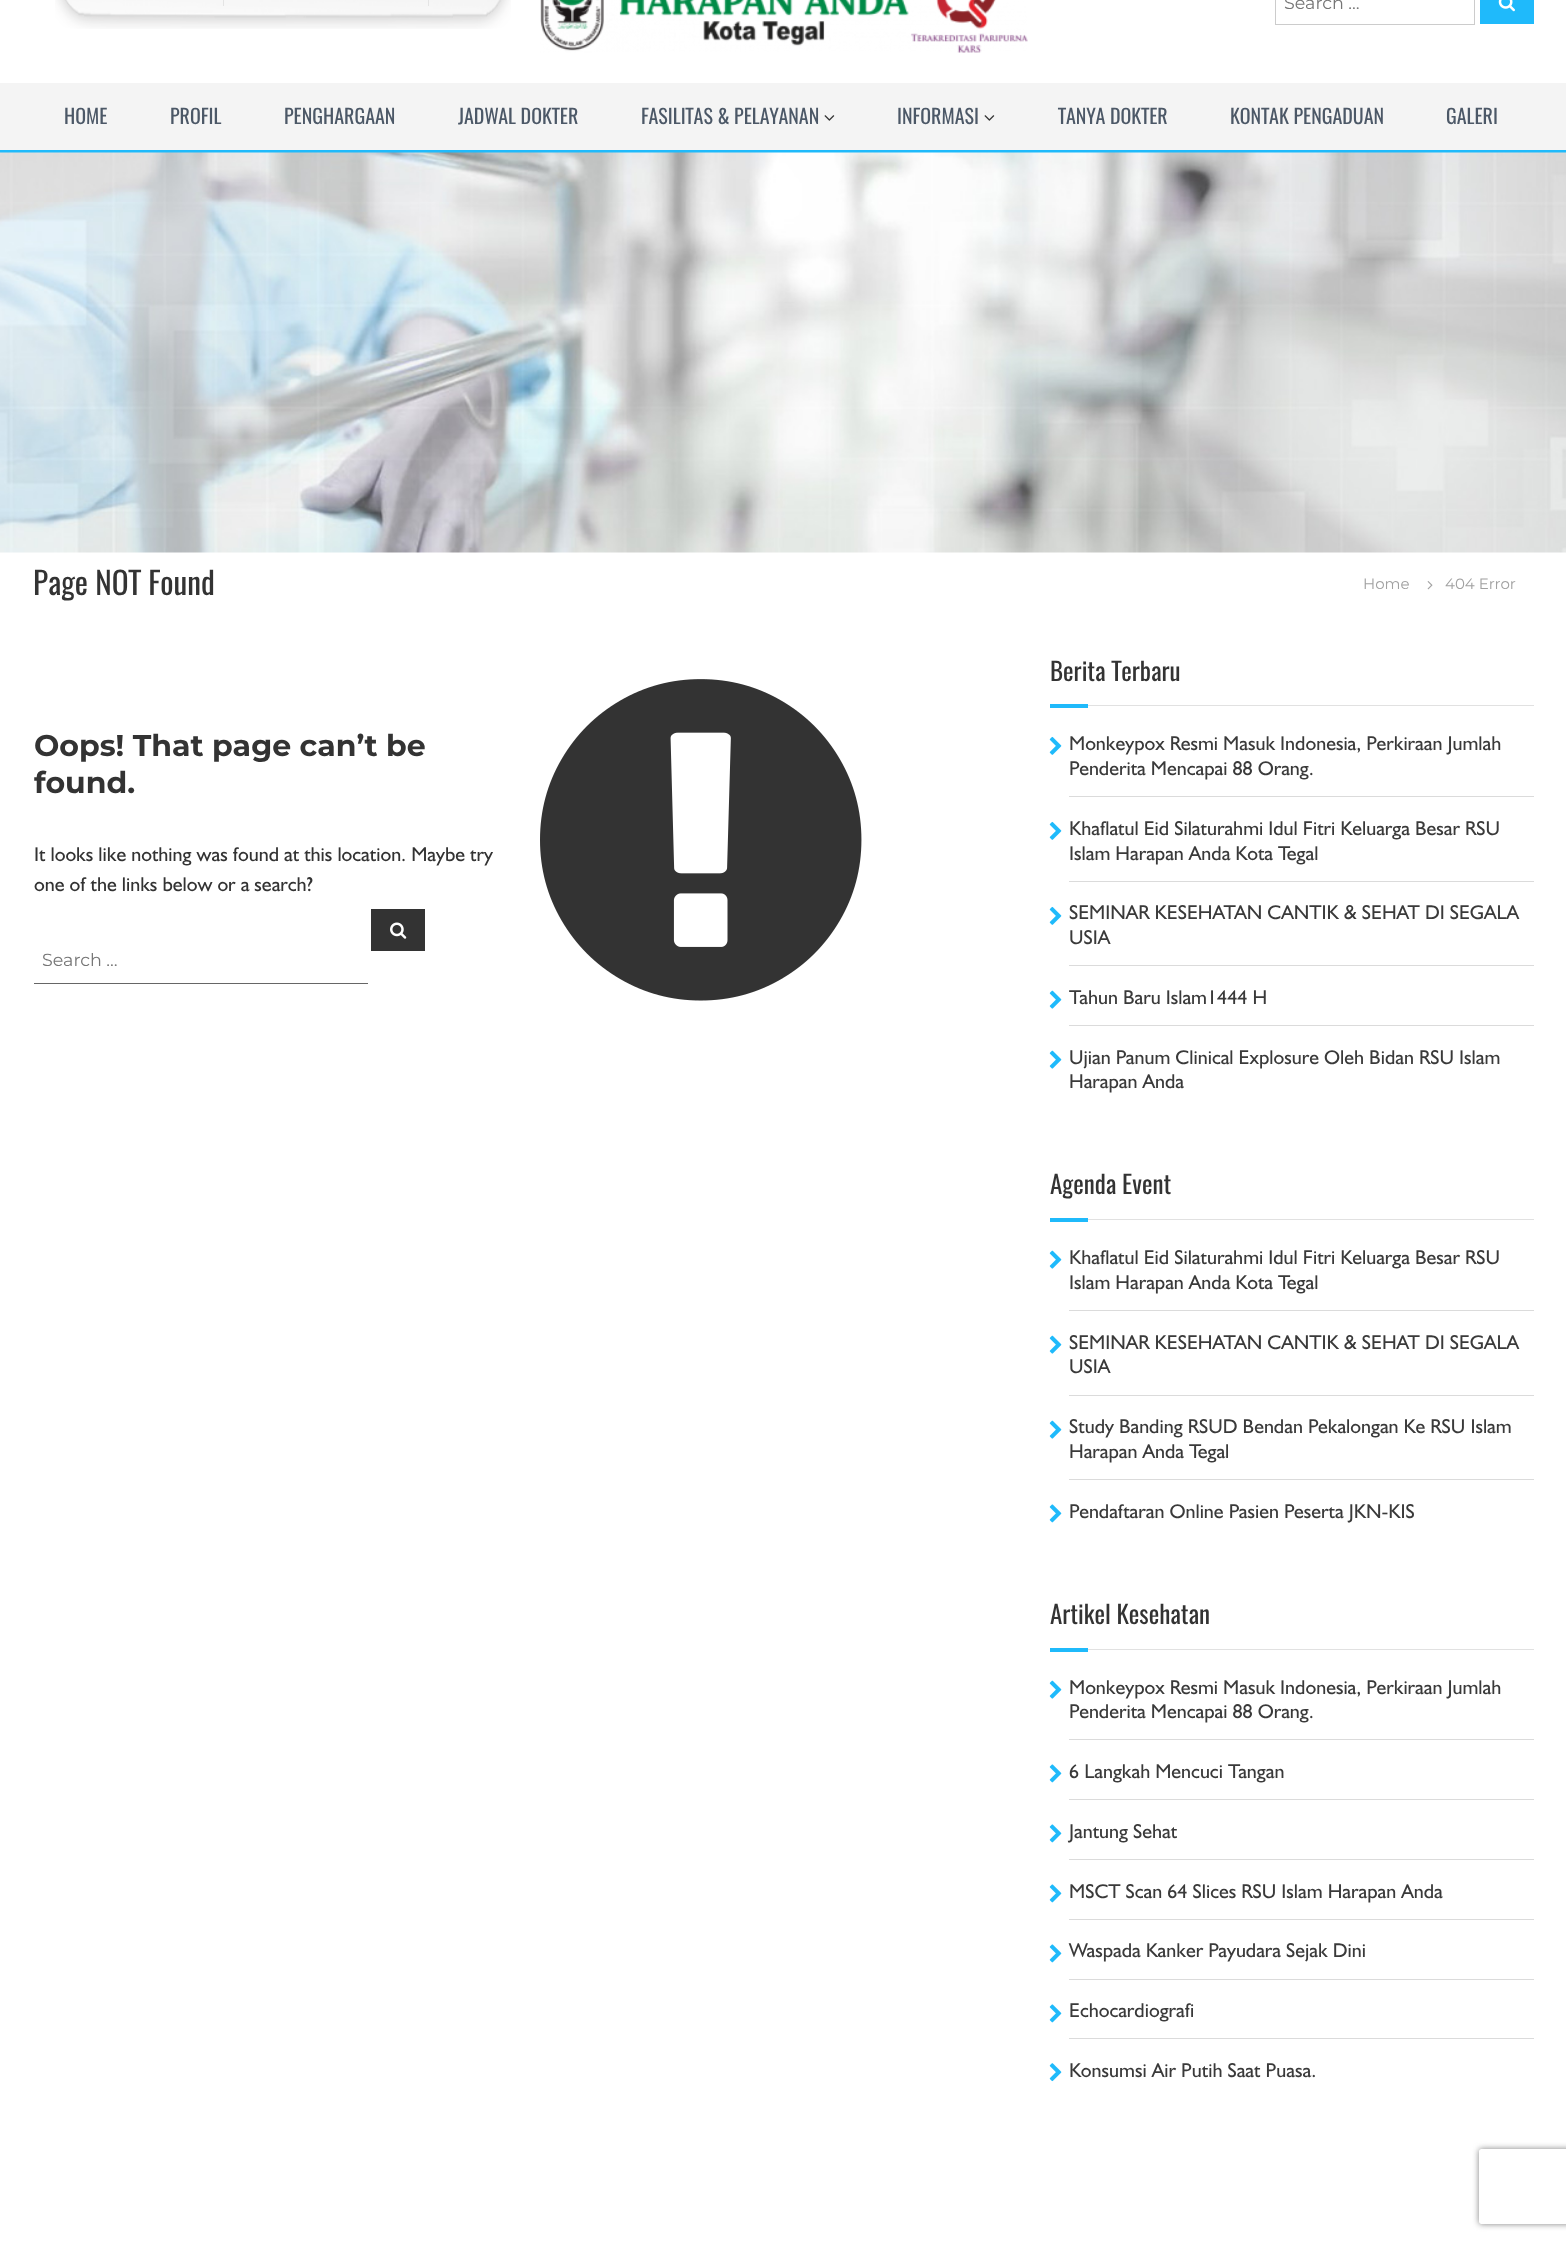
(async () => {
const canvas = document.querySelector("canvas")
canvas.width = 1566
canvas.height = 2241
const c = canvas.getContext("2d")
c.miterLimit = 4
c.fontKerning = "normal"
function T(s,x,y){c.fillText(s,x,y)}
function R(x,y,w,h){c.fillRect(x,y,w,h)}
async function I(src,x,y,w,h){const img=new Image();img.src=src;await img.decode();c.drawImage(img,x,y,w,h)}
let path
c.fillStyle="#fff"
R(0,0,1566,2241)
await I("1.png",55,0,456,29)
c.fillStyle="#e4e4e4"
R(428,0,1,6)
R(223,0,1,6)
c.strokeStyle="#ccc"
c.strokeRect(1275.5,-.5,199,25)
c.font="17.5px Montserrat"
c.fillStyle="#757575"
T("Search …",1284,9)
c.fillStyle="#1fbafb"
R(1480,0,54,24)
await I("2.png",1498,0,17,12)
await I("3.png",540,0,488,53)
c.fillStyle="#f4f4f4"
R(0,83,1566,67)
c.fillStyle="#1fbafb"
R(0,150,1566,3)
c.font="20px Oswald"
c.fillStyle="#4c5867"
T("HOME",64,124)
T("PROFIL",170,124)
T("PENGHARGAAN",284,124)
T("JADWAL DOKTER",458,124)
T("FASILITAS & PELAYANAN",641,124)
await I("4.png",824,115,11,6)
T("INFORMASI",897,124)
await I("4.png",984,115,11,6)
T("TANYA DOKTER",1058,124)
T("KONTAK PENGADUAN",1230,124)
T("GALERI",1446,124)
await I("5.png",0,152,1566,401)
c.font="31.25px Oswald"
c.fillStyle="#333"
T("Page NOT Found",33,595)
c.font="15px Montserrat"
c.fillStyle="#a1a1a1"
T("Home",1363,589)
await I("6.png",1427,581,6,9)
T("404 Error",1445,589)
c.font="bold 30px Montserrat"
c.fillStyle="#333"
T("Oops! That page can’t be",34,756)
T("found.",34,793)
c.font="20px 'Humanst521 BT'"
T("It looks like nothing was found at this location. Maybe try",34,861)
T("one of the links below or a search?",34,891)
R(371,909,54,42)
await I("7.png",390,922,17,17)
c.fillStyle="#666"
R(34,983,334,1)
c.font="17.5px Montserrat"
c.fillStyle="#757575"
T("Search …",42,966)
await I("8.png",540,679,322,322)
c.font="25px Oswald"
c.fillStyle="#333"
T("Berita Terbaru",1050,681)
c.fillStyle="#1fbafb"
R(1050,704,38,4)
c.fillStyle="#e1e1e1"
R(1088,705,446,1)
c.fillStyle="#dbdbdb"
R(1069,796,465,1)
await I("9.png",1049,736,13,19)
c.font="20px 'Humanst521 BT'"
c.fillStyle="#3a3a3a"
T("Monkeypox Resmi Masuk Indonesia, Perkiraan Jumlah",1069,750)
T("Penderita Mencapai 88 Orang.",1069,775)
c.fillStyle="#dbdbdb"
R(1069,881,465,1)
await I("9.png",1049,821,13,19)
c.fillStyle="#3a3a3a"
T("Khaflatul Eid Silaturahmi Idul Fitri Keluarga Besar RSU",1069,835)
T("Islam Harapan Anda Kota Tegal",1069,860)
c.fillStyle="#dbdbdb"
R(1069,965,465,1)
await I("9.png",1049,906,13,19)
c.fillStyle="#3a3a3a"
T("SEMINAR KESEHATAN CANTIK & SEHAT DI SEGALA",1069,919)
T("USIA",1069,944)
c.fillStyle="#dbdbdb"
R(1069,1025,465,1)
await I("10.png",1049,990,13,19)
c.fillStyle="#3a3a3a"
T("Tahun Baru Islam1444 H",1069,1004)
await I("10.png",1049,1050,13,19)
T("Ujian Panum Clinical Explosure Oleh Bidan RSU Islam",1069,1064)
T("Harapan Anda",1069,1088)
c.font="25px Oswald"
c.fillStyle="#333"
T("Agenda Event",1050,1194)
c.fillStyle="#1fbafb"
R(1050,1218,38,4)
c.fillStyle="#e1e1e1"
R(1088,1219,446,1)
c.fillStyle="#dbdbdb"
R(1069,1310,465,1)
await I("10.png",1049,1250,13,19)
c.font="20px 'Humanst521 BT'"
c.fillStyle="#3a3a3a"
T("Khaflatul Eid Silaturahmi Idul Fitri Keluarga Besar RSU",1069,1264)
T("Islam Harapan Anda Kota Tegal",1069,1289)
c.fillStyle="#dbdbdb"
R(1069,1395,465,1)
await I("10.png",1049,1335,13,19)
c.fillStyle="#3a3a3a"
T("SEMINAR KESEHATAN CANTIK & SEHAT DI SEGALA",1069,1349)
T("USIA",1069,1373)
c.fillStyle="#dbdbdb"
R(1069,1479,465,1)
await I("10.png",1049,1420,13,19)
c.fillStyle="#3a3a3a"
T("Study Banding RSUD Bendan Pekalongan Ke RSU Islam",1069,1433)
T("Harapan Anda Tegal",1069,1458)
await I("11.png",1049,1504,13,19)
T("Pendaftaran Online Pasien Peserta JKN-KIS",1069,1518)
c.font="25px Oswald"
c.fillStyle="#333"
T("Artikel Kesehatan",1050,1624)
c.fillStyle="#1fbafb"
R(1050,1648,38,4)
c.fillStyle="#e1e1e1"
R(1088,1649,446,1)
c.fillStyle="#dbdbdb"
R(1069,1739,465,1)
await I("10.png",1049,1680,13,19)
c.font="20px 'Humanst521 BT'"
c.fillStyle="#3a3a3a"
T("Monkeypox Resmi Masuk Indonesia, Perkiraan Jumlah",1069,1694)
T("Penderita Mencapai 88 Orang.",1069,1718)
c.fillStyle="#dbdbdb"
R(1069,1799,465,1)
await I("11.png",1049,1764,13,19)
c.fillStyle="#3a3a3a"
T("6 Langkah Mencuci Tangan",1069,1778)
c.fillStyle="#dbdbdb"
R(1069,1859,465,1)
await I("11.png",1049,1824,13,19)
c.fillStyle="#3a3a3a"
T("Jantung Sehat",1069,1838)
c.fillStyle="#dbdbdb"
R(1069,1919,465,1)
await I("11.png",1049,1884,13,19)
c.fillStyle="#3a3a3a"
T("MSCT Scan 64 Slices RSU Islam Harapan Anda",1069,1898)
c.fillStyle="#dbdbdb"
R(1069,1979,465,1)
await I("11.png",1049,1944,13,19)
c.fillStyle="#3a3a3a"
T("Waspada Kanker Payudara Sejak Dini",1069,1957)
c.fillStyle="#dbdbdb"
R(1069,2038,465,1)
await I("11.png",1049,2004,13,19)
c.fillStyle="#3a3a3a"
T("Echocardiografi",1069,2017)
await I("12.png",1049,2063,13,19)
T("Konsumsi Air Putih Saat Puasa.",1069,2077)
c.save()
path = new Path2D("M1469 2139h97v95h-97zm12.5 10h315c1.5 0 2.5 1 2.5 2.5v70c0 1.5-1 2.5-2.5 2.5h-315c-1.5 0-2.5-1-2.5-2.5v-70c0-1.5 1-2.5 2.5-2.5z")
c.clip(path,"evenodd")
c.fillStyle="#808080"
c.filter="blur(3px)"
c.beginPath()
c.roundRect(1479,2149,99,75,2.5)
c.fill()
c.filter="none"
c.restore()
})()
